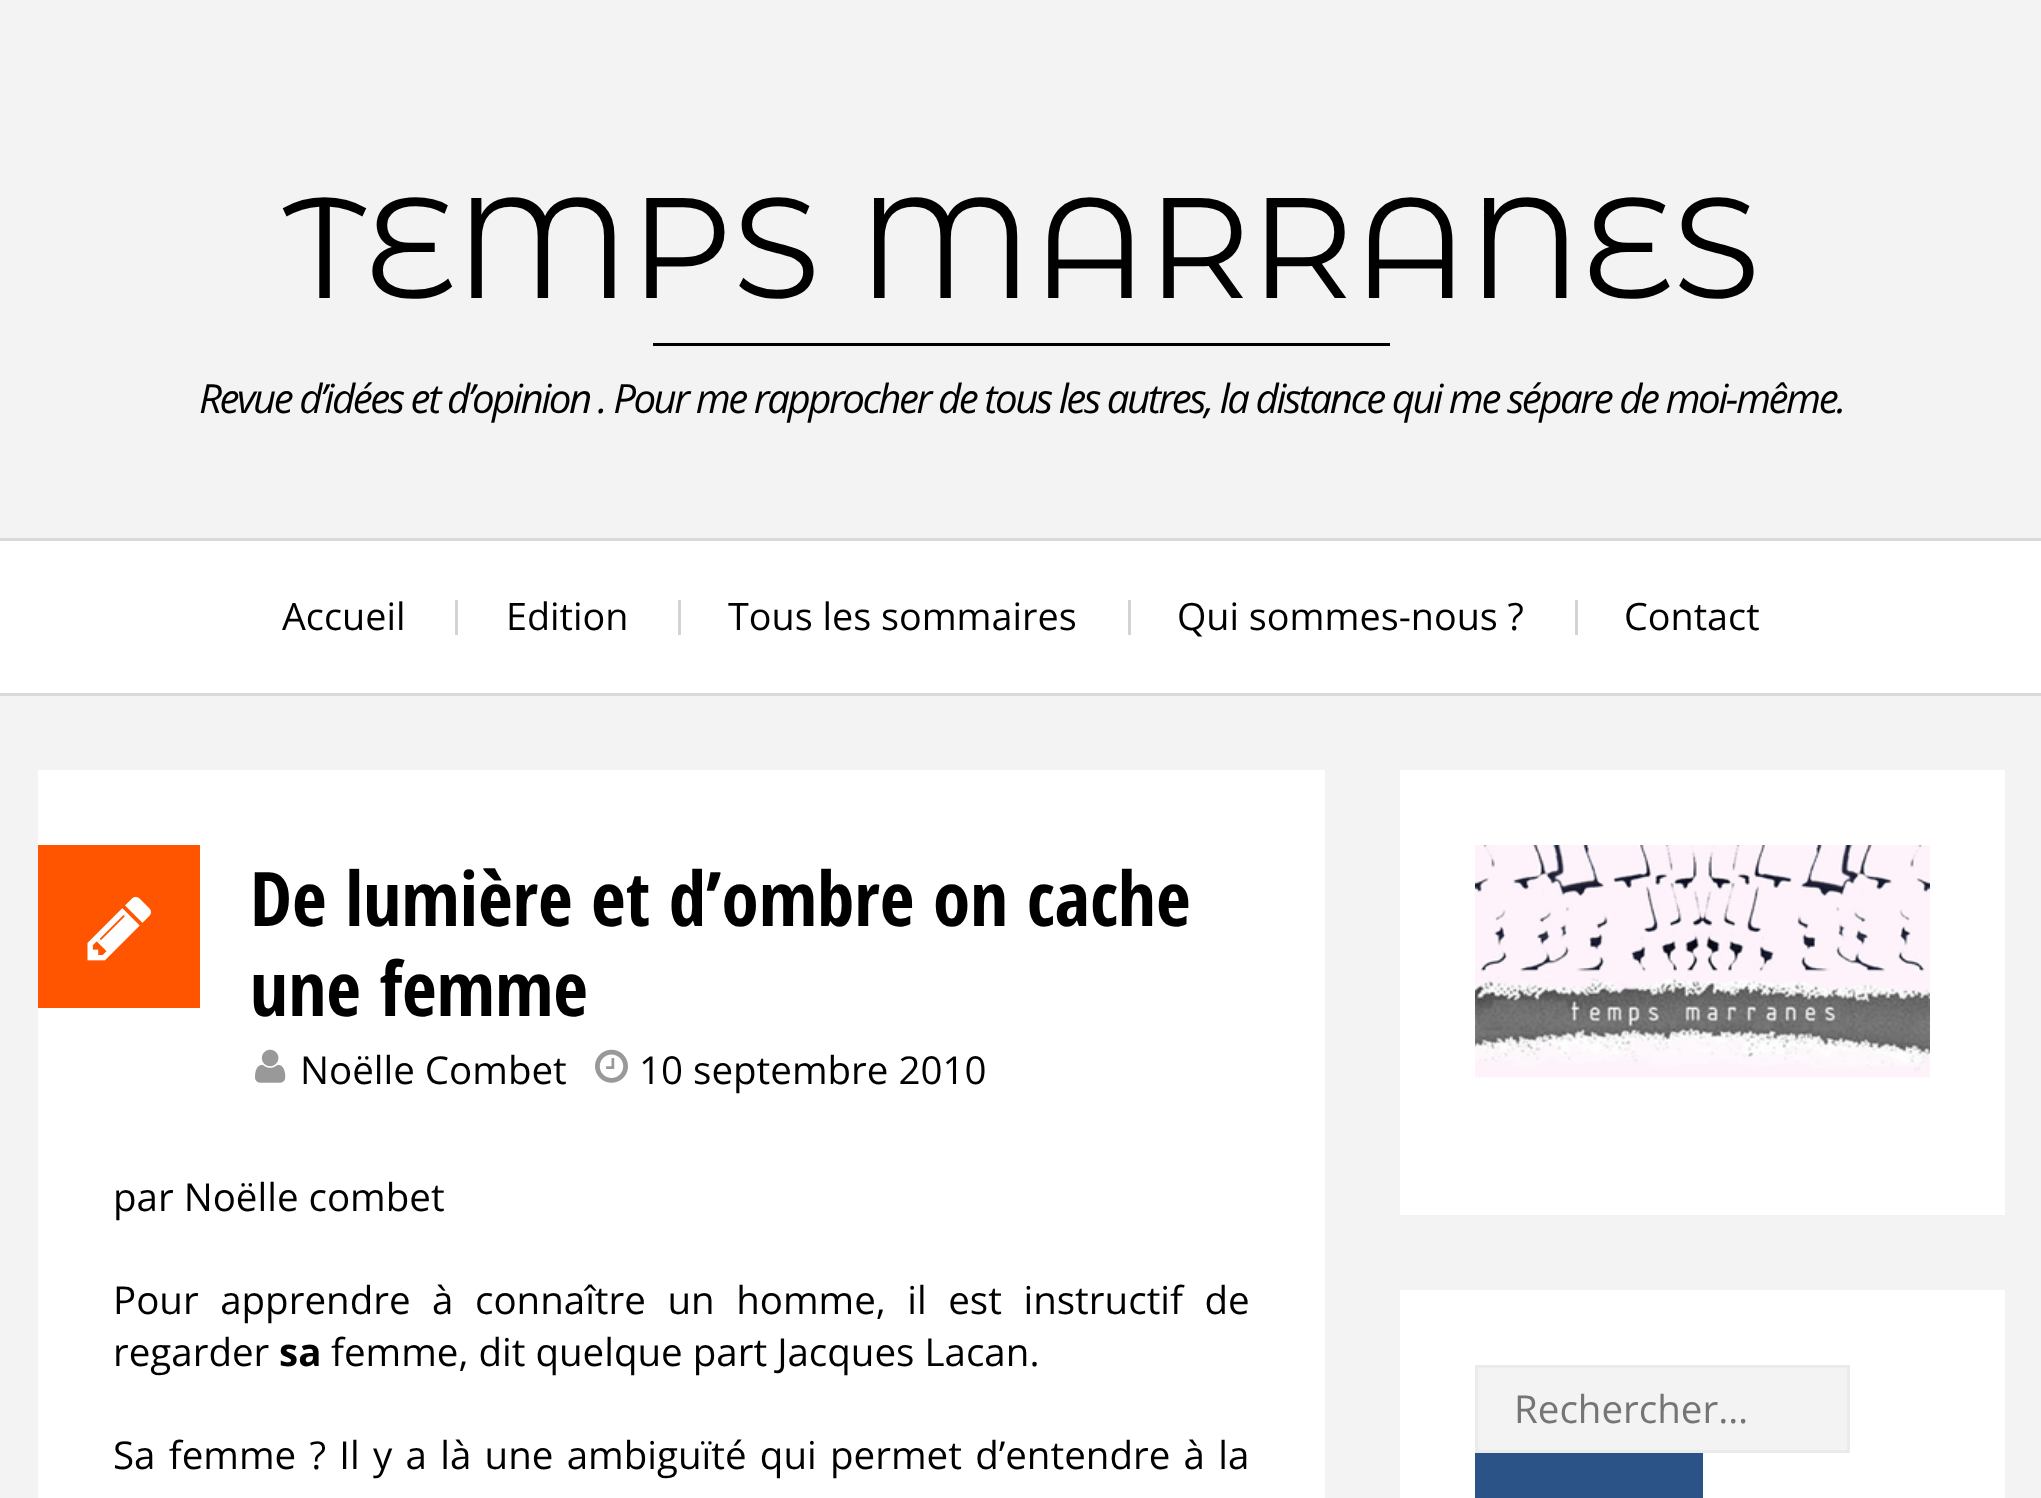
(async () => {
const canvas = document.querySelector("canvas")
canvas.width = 2041
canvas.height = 1498
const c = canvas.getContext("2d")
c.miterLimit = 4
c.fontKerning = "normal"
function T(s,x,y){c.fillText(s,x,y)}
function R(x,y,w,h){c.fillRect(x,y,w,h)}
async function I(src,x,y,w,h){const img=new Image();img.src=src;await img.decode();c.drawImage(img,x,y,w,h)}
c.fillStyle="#f3f3f3"
R(0,0,2041,1498)
c.font="142.75px Montserrat Alternates"
c.fillStyle="#000"
T("TEMPS MARRANES",283,298)
R(653,343,737,3)
c.letterSpacing="-2.5px"
c.font="italic 40.25px Open Sans"
T("Revue d’idées et d’opinion . Pour me rapprocher",199,413)
T("de tous les autres, la distance qui me sépare de moi-même.",938,413)
c.fillStyle="#fff"
R(0,541,2041,152)
c.fillStyle="#d9d9d9"
R(0,538,2041,3)
R(0,693,2041,3)
c.letterSpacing="0px"
c.font="37.75px Open Sans"
c.fillStyle="#000"
T("Accueil",282,630)
c.fillStyle="#d3d3d3"
R(455,600,3,35)
c.fillStyle="#000"
T("Edition",506,630)
c.fillStyle="#d3d3d3"
R(678,600,3,35)
c.fillStyle="#000"
T("Tous les sommaires",728,630)
c.fillStyle="#d3d3d3"
R(1128,600,3,35)
c.fillStyle="#000"
T("Qui sommes-nous ?",1177,630)
c.fillStyle="#d3d3d3"
R(1575,600,3,35)
c.fillStyle="#000"
T("Contact",1624,630)
c.fillStyle="#fff"
R(38,770,1287,728)
c.fillStyle="#ff5400"
R(38,845,162,163)
await I("1.png",87,896,64,65)
c.font="bold 75.25px Open Sans Condensed"
c.fillStyle="#000"
T("De lumière et d’ombre on cache",250,926)
T("une femme",250,1016)
await I("2.png",255,1049,31,34)
c.font="38.5px Open Sans"
T("Noëlle Combet",300,1084)
await I("3.png",595,1049,33,34)
T("10 septembre 2010",639,1084)
T("par Noëlle combet",113,1211)
c.wordSpacing="11.5px"
T("Pour apprendre à connaître un homme, il est instructif de",113,1314)
c.wordSpacing="0px"
T("regarder",113,1366)
c.font="bold 38.5px Open Sans"
T("sa",279,1366)
c.font="38.5px Open Sans"
T("femme, dit quelque part Jacques Lacan.",331,1366)
c.wordSpacing="3.25px"
T("Sa femme ? Il y a là une ambiguïté qui permet d’entendre à la",113,1469)
c.fillStyle="#fff"
R(1400,770,605,445)
await I("4.png",1475,845,455,233)
R(1400,1290,605,208)
c.fillStyle="#f3f3f3"
c.beginPath()
c.rect(1476.5,1366.5,372,85)
c.fill()
c.strokeStyle="#ebebeb"
c.lineWidth=3
c.stroke()
c.wordSpacing="0px"
c.fillStyle="#757575"
T("Rechercher…",1514,1423)
c.fillStyle="#2b5387"
R(1475,1453,228,45)
})()
